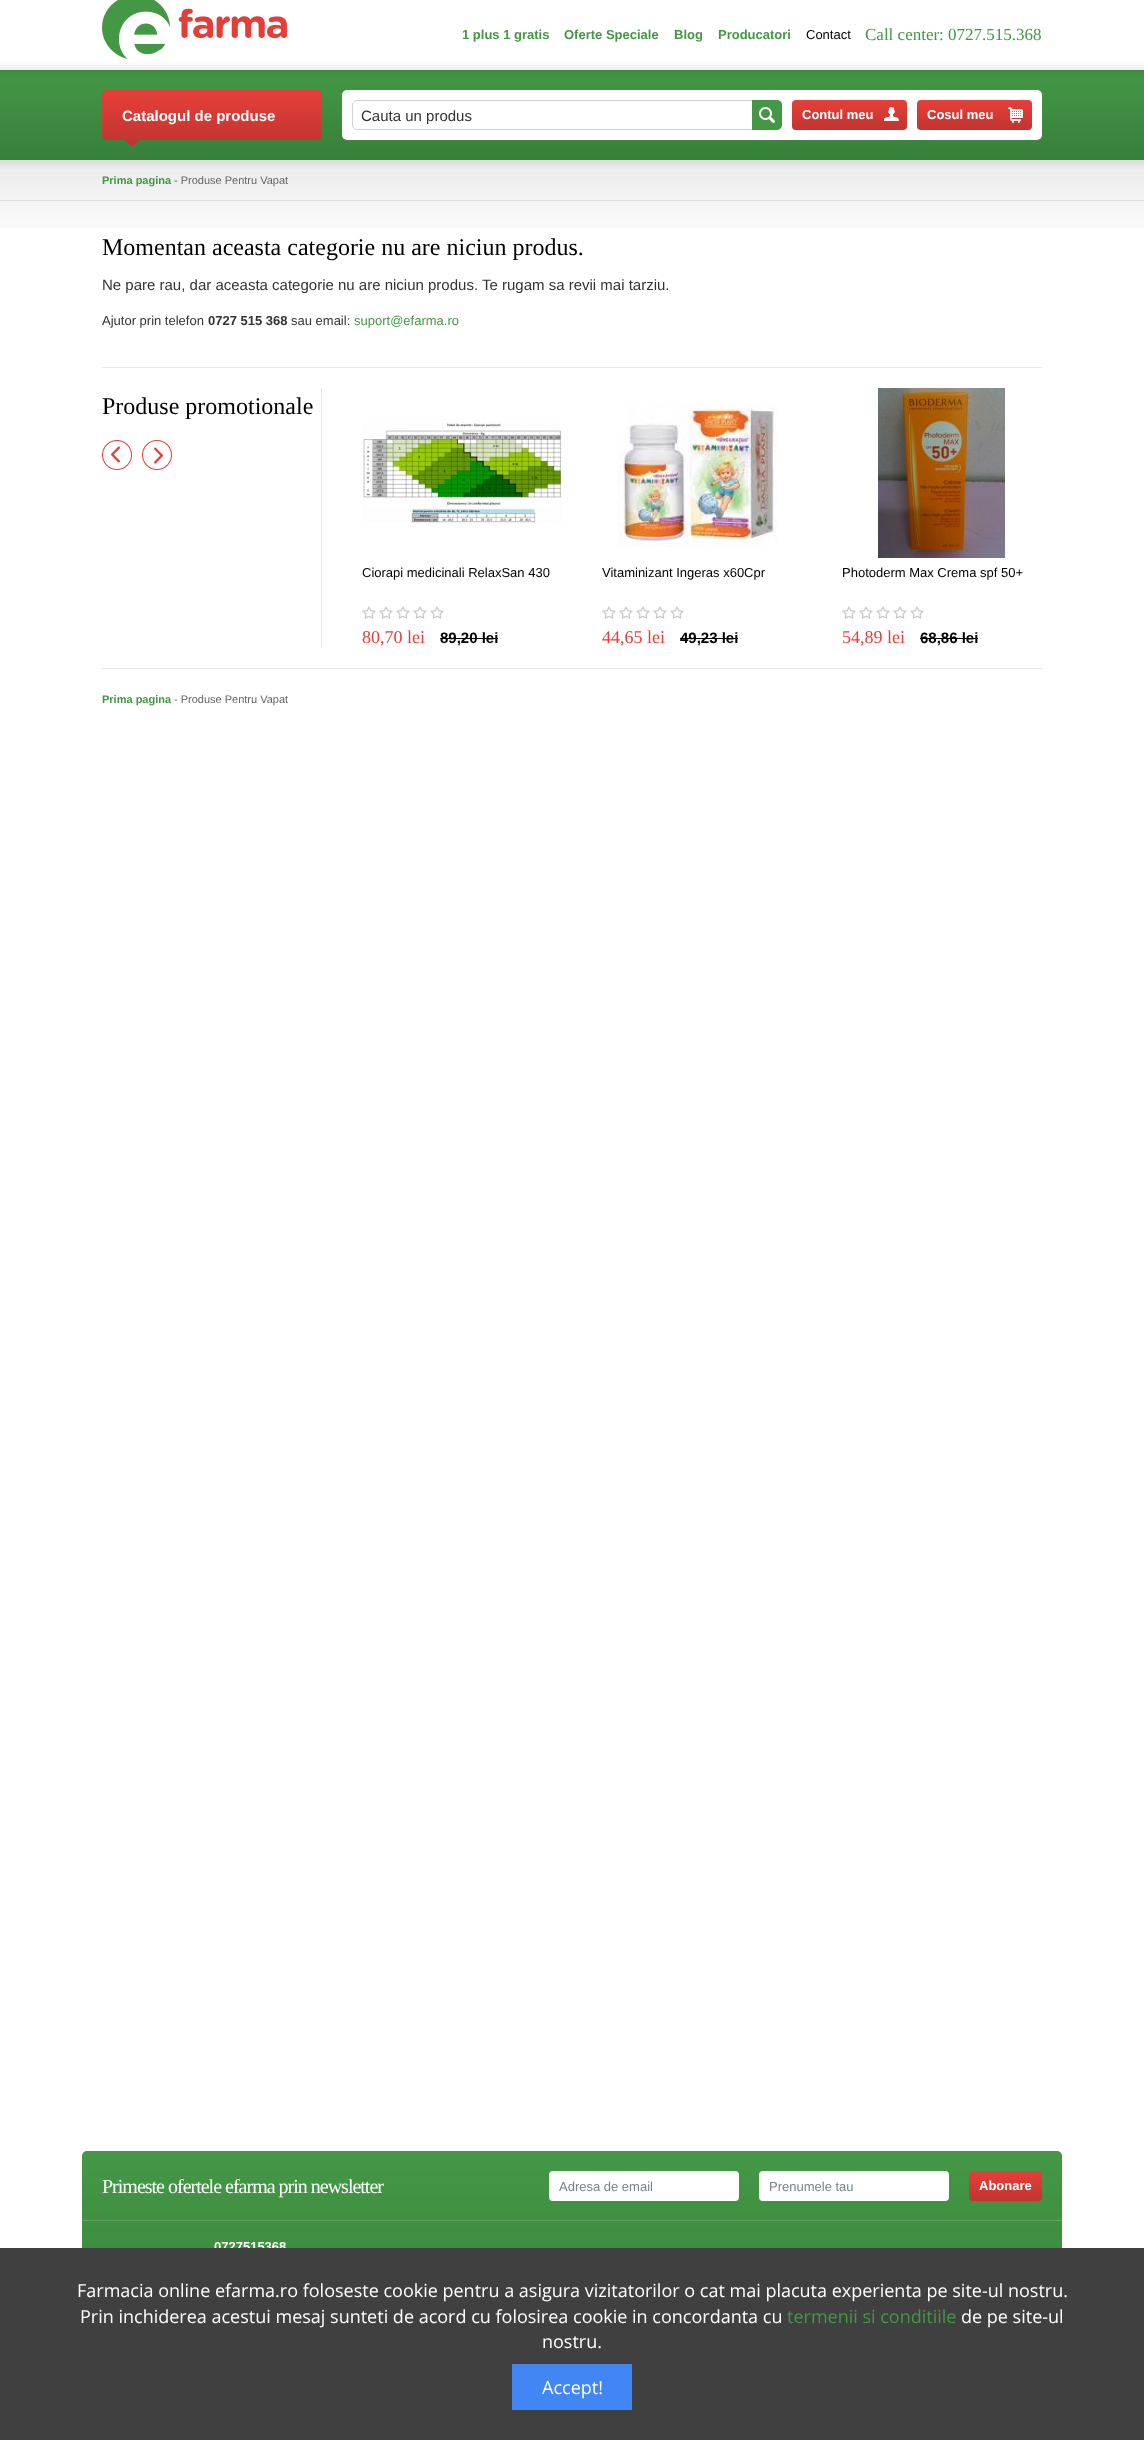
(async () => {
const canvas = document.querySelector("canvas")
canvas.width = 1144
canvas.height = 2440
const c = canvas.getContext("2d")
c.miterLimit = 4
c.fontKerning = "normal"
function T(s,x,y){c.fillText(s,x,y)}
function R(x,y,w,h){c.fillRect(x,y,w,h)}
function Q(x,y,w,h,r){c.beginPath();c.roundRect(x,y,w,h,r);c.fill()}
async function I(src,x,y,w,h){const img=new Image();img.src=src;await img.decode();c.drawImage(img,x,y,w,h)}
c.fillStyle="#fff"
R(0,0,1144,2440)
await I("1.png",102,0,185,60)
c.font="bold 13px Liberation Sans"
c.fillStyle="#439745"
T("1 plus 1 gratis",462,39)
T("Oferte Speciale",564,39)
T("Blog",674,39)
T("Producatori",718,39)
c.font="13px Liberation Sans"
c.fillStyle="#000"
T("Contact",806,39)
c.font="17px Liberation Serif"
c.fillStyle="#439745"
T("Call center: 0727.515.368",865,40)
await I("9.png",0,160,1144,68)
c.fillStyle="#0000000f"
c.filter="blur(2.5px)"
c.beginPath()
c.rect(-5,65,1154,100)
c.fill()
c.filter="none"
await I("2.png",0,70,1144,90)
await I("3.png",102,90,220,50)
c.font="bold 15px Liberation Sans"
c.fillStyle="#fff"
T("Catalogul de produse",122,121)
await I("4.png",125,140,14,7)
Q(342,90,700,50,5)
c.beginPath()
c.roundRect(352.5,100.5,429,29,4.5)
c.strokeStyle="#d3d3d3"
c.stroke()
c.font="15px Liberation Sans"
c.fillStyle="#333"
T("Cauta un produs",361,121)
c.fillStyle="#439745"
c.beginPath()
c.roundRect(752,100,30,30,[0,5,5,0])
c.fill()
await I("5.png",759,107,16,16)
await I("6.png",792,100,115,30)
c.font="bold 13px Liberation Sans"
c.fillStyle="#fff"
T("Contul meu",802,119)
await I("7.png",884,107,15,14)
await I("6.png",917,100,115,30)
T("Cosul meu",927,119)
await I("8.png",1008,107,15,16)
c.fillStyle="#dedede"
R(0,200,1144,1)
c.font="bold 11px Liberation Sans"
c.fillStyle="#439745"
T("Prima pagina",102,184)
c.font="11px Liberation Sans"
c.fillStyle="#666"
T("- Produse Pentru Vapat",174,184)
c.fillStyle="#e7e7e7"
R(102,367,940,1)
c.font="24px Liberation Serif"
c.fillStyle="#000"
T("Momentan aceasta categorie nu are niciun produs.",102,255)
c.font="15px Liberation Sans"
c.fillStyle="#333"
T("Ne pare rau, dar aceasta categorie nu are niciun produs. Te rugam sa revii mai tarziu.",102,290)
c.font="13px Liberation Sans"
T("Ajutor prin telefon",102,325)
c.font="bold 13px Liberation Sans"
T("0727 515 368",208,325)
c.font="13px Liberation Sans"
T("sau email:",291,325)
c.fillStyle="#439745"
T("suport@efarma.ro",354,325)
c.fillStyle="#e7e7e7"
R(321,388,1,260)
c.font="24px Liberation Serif"
c.fillStyle="#000"
T("Produse promotionale",102,414)
await I("10.png",102,440,30,30)
await I("11.png",142,440,30,30)
await I("12.png",362,420,200,104)
c.font="13px Liberation Sans"
T("Ciorapi medicinali RelaxSan 430",362,577)
await I("13.png",362,606,82,13)
c.font="18px Liberation Serif"
c.fillStyle="#e43e39"
T("80,70 lei",362,643)
c.font="bold 15px Liberation Sans"
c.fillStyle="#000"
T("89,20 lei",440,643)
R(440,638,58,1)
await I("14.png",617,404,161,144)
c.font="13px Liberation Sans"
T("Vitaminizant Ingeras x60Cpr",602,577)
await I("13.png",602,606,82,13)
c.font="18px Liberation Serif"
c.fillStyle="#e43e39"
T("44,65 lei",602,643)
c.font="bold 15px Liberation Sans"
c.fillStyle="#000"
T("49,23 lei",680,643)
R(680,638,58,1)
await I("15.png",875,388,131,170)
c.font="13px Liberation Sans"
T("Photoderm Max Crema spf 50+",842,577)
await I("13.png",842,606,82,13)
c.font="18px Liberation Serif"
c.fillStyle="#e43e39"
T("54,89 lei",842,643)
c.font="bold 15px Liberation Sans"
c.fillStyle="#000"
T("68,86 lei",920,643)
R(920,638,58,1)
c.fillStyle="#e7e7e7"
R(102,668,940,1)
c.font="bold 11px Liberation Sans"
c.fillStyle="#439745"
T("Prima pagina",102,703)
c.font="11px Liberation Sans"
c.fillStyle="#666"
T("- Produse Pentru Vapat",174,703)
await I("16.png",82,2151,980,97)
c.fillStyle="#5da15e"
R(82,2220,980,1)
c.letterSpacing="-1px"
c.font="20px Liberation Serif"
c.fillStyle="#fff"
T("Primeste ofertele efarma prin newsletter",102,2193)
Q(549,2171,190,30,4)
c.letterSpacing="0px"
c.font="13px Liberation Sans"
c.fillStyle="#77838c"
T("Adresa de email",559,2191)
c.fillStyle="#fff"
Q(759,2171,190,30,4)
c.fillStyle="#77838c"
T("Prenumele tau",769,2191)
await I("17.png",969,2171,73,30)
c.font="bold 13px Liberation Sans"
c.fillStyle="#fff"
T("Abonare",979,2190)
T("0727515368",214,2251)
c.fillStyle="#404040"
R(0,2248,1144,192)
c.font="18px Open Sans"
c.fillStyle="#fff"
T("Farmacia online efarma.ro foloseste cookie pentru a asigura vizitatorilor o cat mai placuta experienta pe site-ul nostru.",77,2297)
T("Prin inchiderea acestui mesaj sunteti de acord cu folosirea cookie in concordanta cu",80,2323)
c.fillStyle="#439745"
T("termenii si conditiile",787,2323)
c.fillStyle="#fff"
T("de pe site-ul",961,2323)
T("nostru.",542,2348)
c.fillStyle="#4285f4"
R(512,2364,120,46)
c.fillStyle="#fff"
T("Accept!",542,2394)
})()
